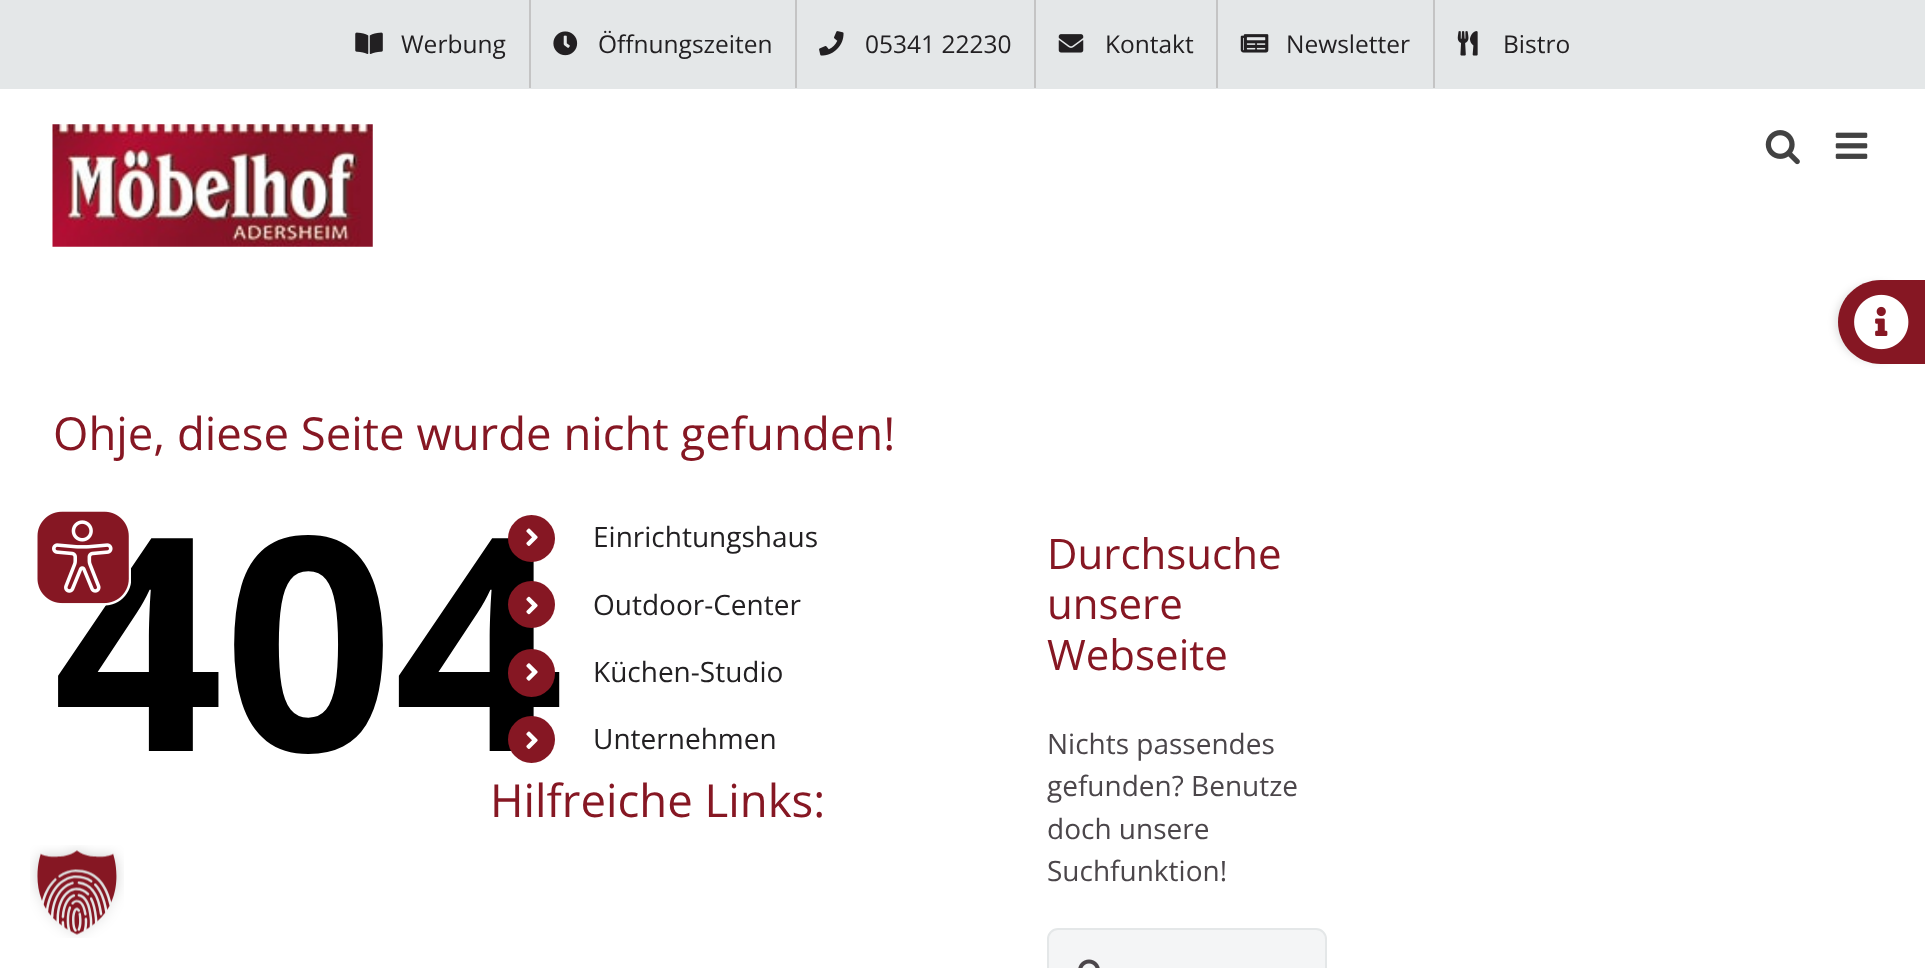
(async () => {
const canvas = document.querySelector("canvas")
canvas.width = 1925
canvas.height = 968
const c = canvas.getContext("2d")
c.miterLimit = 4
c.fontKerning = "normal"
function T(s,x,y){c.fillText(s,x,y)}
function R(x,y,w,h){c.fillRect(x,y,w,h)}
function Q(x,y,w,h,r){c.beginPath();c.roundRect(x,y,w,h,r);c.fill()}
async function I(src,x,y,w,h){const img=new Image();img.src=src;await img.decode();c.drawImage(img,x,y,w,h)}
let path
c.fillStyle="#fff"
R(0,0,1925,968)
c.fillStyle="#e4e7e8"
R(0,0,1925,89)
await I("1.png",355,32,28,22)
c.font="24.5px Open Sans"
c.fillStyle="#222022"
T("Werbung",401,53)
c.fillStyle="#c4c4c4"
R(529,0,2,88)
await I("2.png",553,31,25,25)
c.fillStyle="#222022"
T("Öffnungszeiten",598,53)
c.fillStyle="#c4c4c4"
R(795,0,2,88)
await I("3.png",819,31,25,25)
c.fillStyle="#222022"
T("05341 22230",865,53)
c.fillStyle="#c4c4c4"
R(1034,0,2,88)
await I("4.png",1058,34,26,19)
c.fillStyle="#222022"
T("Kontakt",1105,53)
c.fillStyle="#c4c4c4"
R(1216,0,2,88)
await I("5.png",1240,34,29,19)
c.fillStyle="#222022"
T("Newsletter",1286,53)
c.fillStyle="#c4c4c4"
R(1433,0,2,88)
await I("6.png",1457,31,21,25)
c.fillStyle="#222022"
T("Bistro",1503,53)
await I("7.png",52,124,321,123)
await I("8.png",1765,130,35,35)
await I("9.png",1835,132,33,27)
c.fillStyle="#00000024"
c.filter="blur(4.5px)"
c.beginPath()
c.roundRect(1836,284,80,77,38.5)
c.fill()
c.filter="none"
c.fillStyle="#861723"
path = new Path2D("M1881 280h44v84h-44c-24 0-43-19-43-42c0-23 19-42 43-42z")
c.fill(path)
await I("10.png",1854,294,55,56)
c.font="45.5px Open Sans"
T("Ohje, diese Seite wurde nicht gefunden!",53,450)
c.font="bold 298px Open Sans"
c.fillStyle="#000"
T("404",53,751)
c.fillStyle="#861723"
c.beginPath()
c.arc(531.5,538.5,23.5,0,7)
c.fill()
await I("11.png",526,528,12,18)
c.font="28px Open Sans"
c.fillStyle="#222022"
T("Einrichtungshaus",593,547)
c.fillStyle="#861723"
c.beginPath()
c.arc(531.5,604.5,23.5,0,7)
c.fill()
await I("12.png",526,596,12,19)
c.fillStyle="#222022"
T("Outdoor-Center",593,615)
c.fillStyle="#861723"
Q(508,649,47,48,23.5)
await I("13.png",526,663,12,18)
c.fillStyle="#222022"
T("Küchen-Studio",593,682)
c.fillStyle="#861723"
c.beginPath()
c.arc(531.5,739.5,23.5,0,7)
c.fill()
await I("11.png",526,731,12,18)
c.fillStyle="#222022"
T("Unternehmen",593,749)
c.font="45.5px Open Sans"
c.fillStyle="#861723"
T("Hilfreiche Links:",490,817)
c.font="42px Open Sans"
T("Durchsuche",1047,569)
T("unsere",1047,619)
T("Webseite",1047,670)
c.font="28px Open Sans"
c.fillStyle="#4b464a"
T("Nichts passendes",1047,754)
T("gefunden? Benutze",1047,796)
T("doch unsere",1047,839)
T("Suchfunktion!",1047,881)
c.fillStyle="#f4f5f6"
c.beginPath()
c.roundRect(1048,929,278,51,10)
c.fill()
c.strokeStyle="#e4e7e8"
c.lineWidth=2
c.stroke()
await I("14.png",1078,959,22,9)
await I("15.png",37,511,94,95)
await I("16.png",30,845,94,93)
})()
